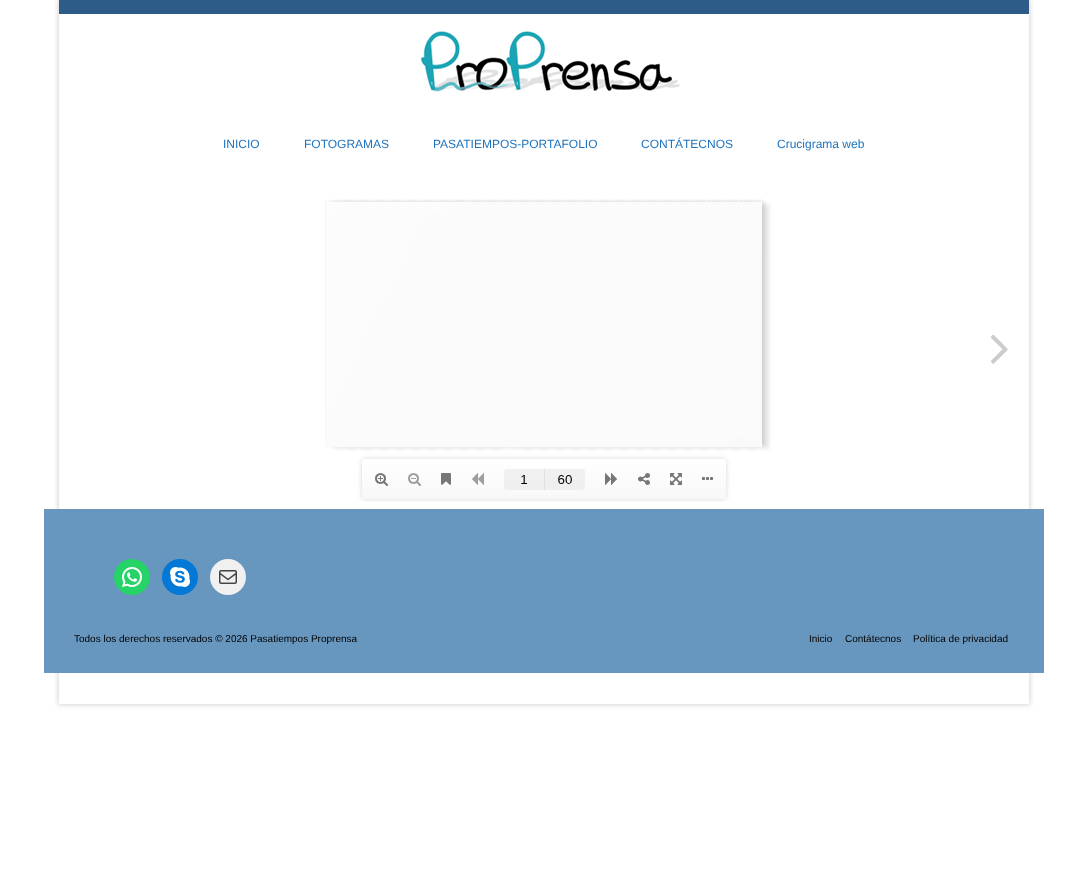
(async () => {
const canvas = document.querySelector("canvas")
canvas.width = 1088
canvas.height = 891
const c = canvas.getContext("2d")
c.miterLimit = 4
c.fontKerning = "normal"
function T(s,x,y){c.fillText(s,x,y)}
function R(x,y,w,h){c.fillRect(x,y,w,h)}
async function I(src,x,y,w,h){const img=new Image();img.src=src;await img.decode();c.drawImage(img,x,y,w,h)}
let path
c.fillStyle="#fff"
R(0,0,1088,891)
c.save()
path = new Path2D("M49 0h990v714h-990zm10 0h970v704h-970z")
c.clip(path,"evenodd")
c.fillStyle="#00000029"
c.filter="blur(2.5px)"
c.beginPath()
c.rect(58,-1,972,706)
c.fill()
c.filter="none"
c.restore()
c.fillStyle="#2d5c88"
R(59,0,970,14)
await I("1.png",421,31,259,61)
c.font="12px Liberation Sans"
c.fillStyle="#1e73be"
T("INICIO",223,148)
T("FOTOGRAMAS",304,148)
T("PASATIEMPOS-PORTAFOLIO",433,148)
T("CONTÁTECNOS",641,148)
T("Crucigrama web",777,148)
await I("2.png",325,199,683,303)
c.fillStyle="#6796bf"
R(44,509,1000,164)
c.fillStyle="#25d366"
c.beginPath()
c.arc(132,577,18,0,7)
c.fill()
await I("3.png",122,567,20,20)
c.fillStyle="#0478d7"
c.beginPath()
c.arc(180,577,18,0,7)
c.fill()
await I("4.png",170,567,20,20)
c.fillStyle="#f0f0f0"
c.beginPath()
c.arc(228,577,18,0,7)
c.fill()
await I("5.png",219,570,18,14)
c.font="10px Liberation Sans"
c.fillStyle="#000"
T("Todos los derechos reservados © 2026 Pasatiempos Proprensa",74,642)
T("Inicio",809,642)
T("Contátecnos",845,642)
T("Política de privacidad",913,642)
})()
